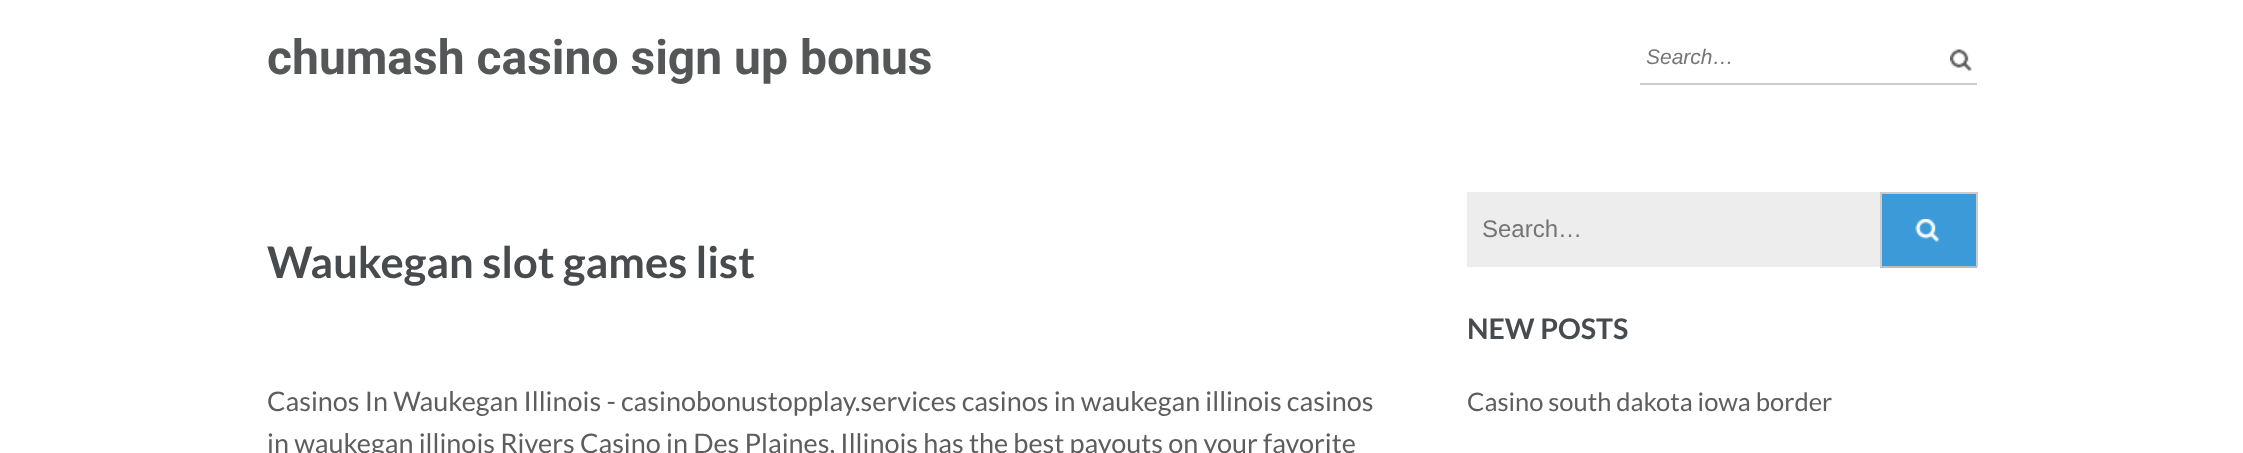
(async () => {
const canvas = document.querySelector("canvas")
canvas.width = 2243
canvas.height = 453
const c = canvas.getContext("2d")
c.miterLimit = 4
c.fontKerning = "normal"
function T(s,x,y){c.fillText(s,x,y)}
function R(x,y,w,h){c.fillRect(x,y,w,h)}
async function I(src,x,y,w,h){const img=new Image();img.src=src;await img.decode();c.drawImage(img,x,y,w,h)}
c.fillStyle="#fff"
R(0,0,2243,453)
c.font="bold 48px Roboto"
c.fillStyle="#555658"
T("chumash casino sign up bonus",267,74)
c.fillStyle="#ccc"
R(1640,83,337,2)
c.font="italic 21px Liberation Sans"
c.fillStyle="#757575"
T("Search…",1646,64)
await I("1.png",1950,49,22,22)
c.font="bold 43.5px Lato"
c.fillStyle="#474b4e"
T("Waukegan slot games list",267,278)
c.font="27px Lato"
c.fillStyle="#5d5d5d"
T("Casinos In Waukegan Illinois - casinobonustopplay.services casinos in waukegan illinois casinos",267,411)
T("in waukegan illinois Rivers Casino in Des Plaines, Illinois has the best payouts on your favorite",267,453)
c.fillStyle="#ededed"
R(1467,192,413,75)
c.font="24px Liberation Sans"
c.fillStyle="#757575"
T("Search…",1482,237)
c.fillStyle="#3b9ad7"
R(1882,194,94,72)
await I("2.png",1915,219,25,23)
c.fillStyle="#ccc"
R(1880,192,97,2)
R(1976,192,2,75)
c.fillStyle="#bbb"
R(1880,266,97,2)
c.fillStyle="#ccc"
R(1880,192,2,75)
c.font="bold 28.5px Lato"
c.fillStyle="#474b4e"
T("NEW POSTS",1467,339)
c.font="25.5px Lato"
c.fillStyle="#5d5d5d"
T("Casino south dakota iowa border",1467,411)
})()
